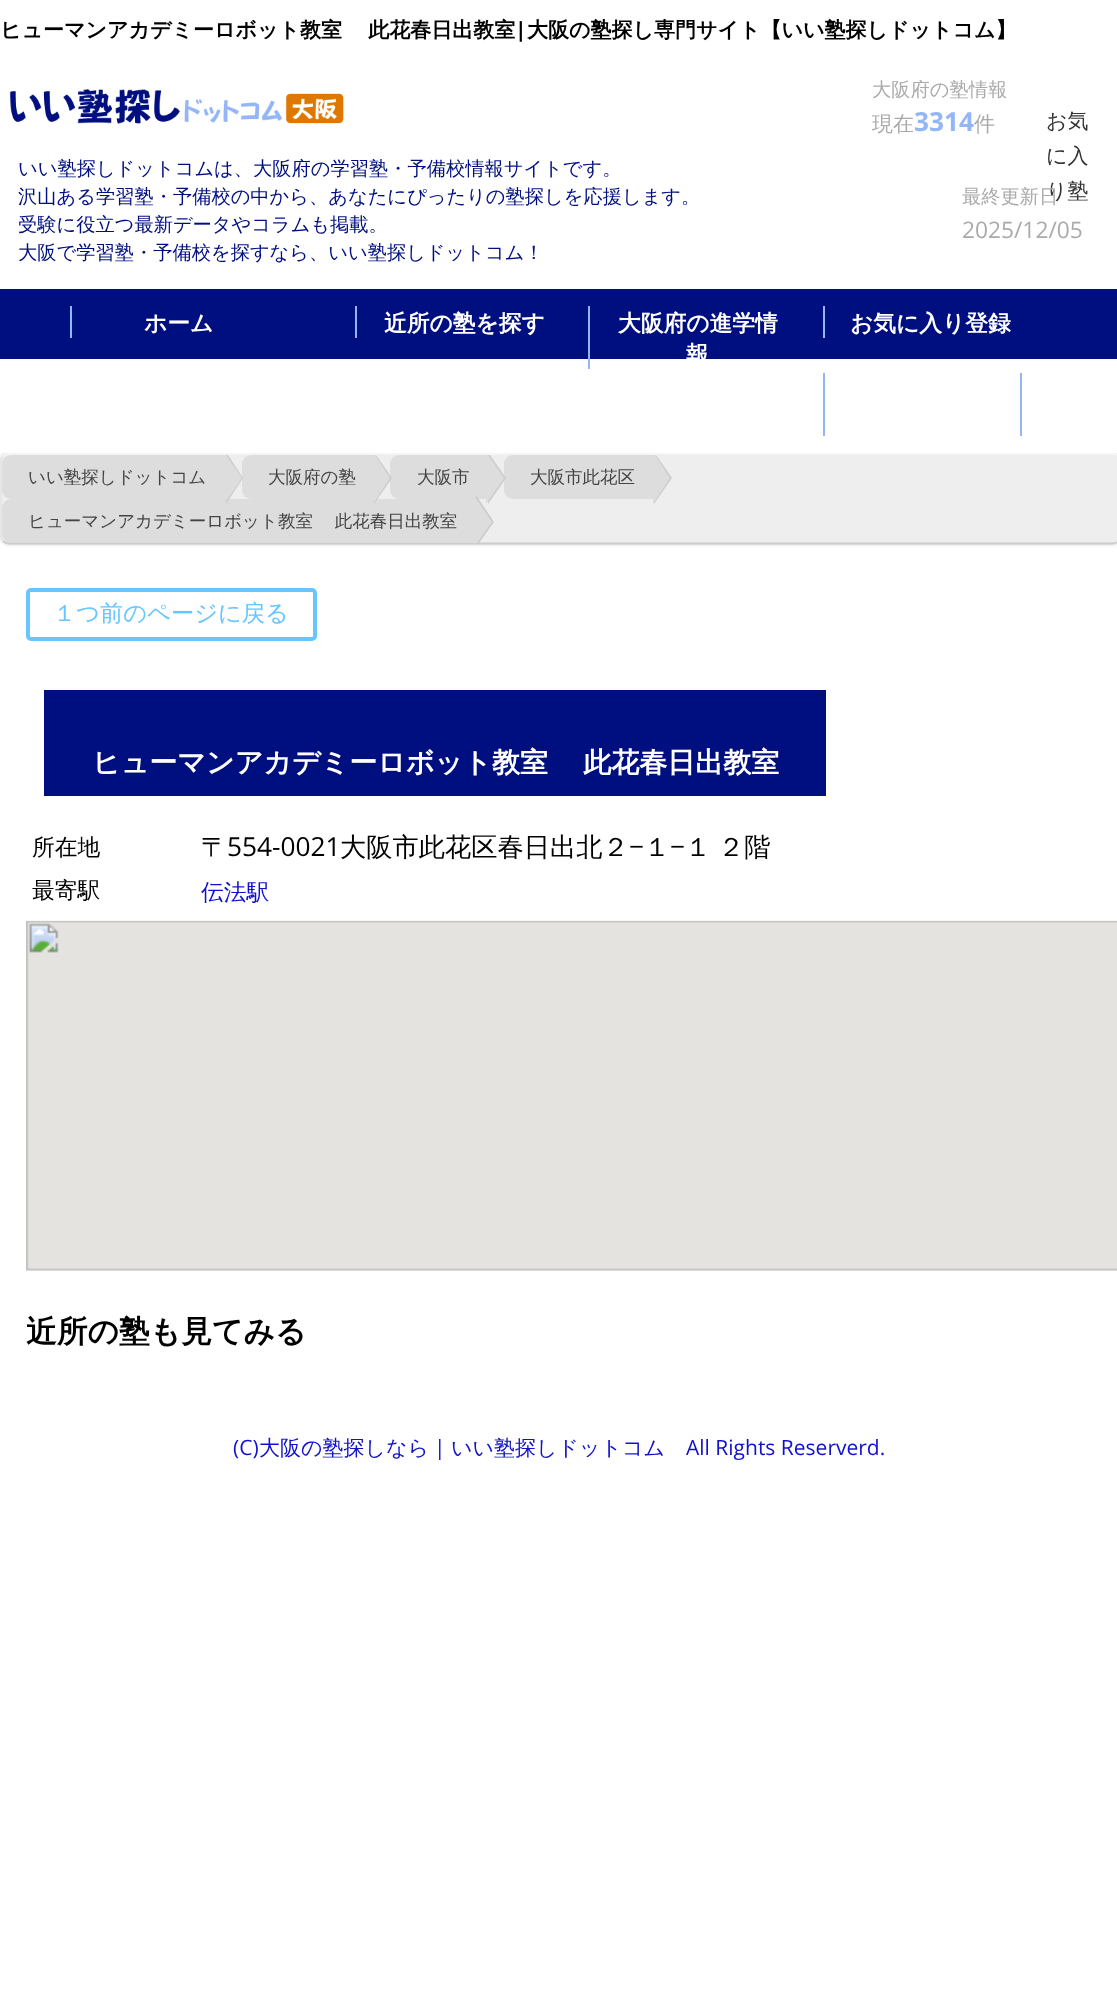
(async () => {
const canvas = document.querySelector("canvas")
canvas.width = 1117
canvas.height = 2014
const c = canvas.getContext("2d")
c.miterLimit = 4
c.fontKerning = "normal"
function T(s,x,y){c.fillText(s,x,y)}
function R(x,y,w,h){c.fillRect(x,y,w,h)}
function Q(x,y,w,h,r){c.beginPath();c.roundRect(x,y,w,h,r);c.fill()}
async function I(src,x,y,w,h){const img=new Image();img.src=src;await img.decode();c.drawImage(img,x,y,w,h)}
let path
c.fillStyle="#fff"
R(0,0,1117,2014)
c.wordSpacing="-1px"
c.font="bold 21px WenQuanYi Zen Hei"
c.fillStyle="#000"
T("ヒューマンアカデミーロボット教室　 此花春日出教室",0,37)
c.wordSpacing="0px"
c.font="bold 21px Open Sans"
T("|",515,37)
c.font="bold 21px WenQuanYi Zen Hei"
T("大阪の塾探し専門サイト【いい塾探しドットコム】",527,37)
await I("1.png",9,89,335,35)
c.font="500 19.25px WenQuanYi Zen Hei"
c.fillStyle="#000f7f"
T("いい塾探しドットコムは、大阪府の学習塾・予備校情報サイトです。",18,175)
T("沢山ある学習塾・予備校の中から、あなたにぴったりの塾探しを応援します。",18,203)
T("受験に役立つ最新データやコラムも掲載。",18,231)
T("大阪で学習塾・予備校を探すなら、いい塾探しドットコム！",18,259)
c.fillStyle="#aaa"
T("大阪府の塾情報",872,96)
c.font="500 21px WenQuanYi Zen Hei"
T("現在",872,131)
c.font="bold 26.25px Open Sans"
c.fillStyle="#94b6f7"
T("3314",914,131)
c.font="500 21px WenQuanYi Zen Hei"
c.fillStyle="#aaa"
T("件",974,131)
c.fillStyle="#333"
T("お気",1046,128)
T("に入",1046,163)
T("り塾",1046,198)
c.font="500 19.25px WenQuanYi Zen Hei"
c.fillStyle="#aaa"
T("最終更新日",962,203)
c.font="22.75px Open Sans"
T("2025/12/05",962,238)
c.fillStyle="#000f7f"
R(0,289,1117,70)
c.fillStyle="#94b6f7"
R(70,306,2,32)
c.font="bold 22.75px WenQuanYi Zen Hei"
c.fillStyle="#fff"
T("ホーム",144,331)
c.fillStyle="#94b6f7"
R(355,306,2,32)
c.fillStyle="#fff"
T("近所の塾を探す",384,331)
c.fillStyle="#94b6f7"
R(588,306,2,63)
c.fillStyle="#fff"
T("大阪府の進学情",618,331)
T("報",686,362)
c.fillStyle="#94b6f7"
R(823,306,2,32)
c.fillStyle="#fff"
T("お気に入り登録",850,331)
c.fillStyle="#94b6f7"
R(1020,373,2,63)
R(823,373,2,63)
c.save()
c.beginPath()
c.rect(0,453,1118,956)
c.clip()
c.fillStyle="#00000033"
c.filter="blur(2px)"
c.beginPath()
c.roundRect(0,453,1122,91,9)
c.fill()
c.filter="none"
c.restore()
c.fillStyle="#eee"
Q(0,453,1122,91,9)
path = new Path2D("M3 456.5c1.5-1.5 3.5-2.5 5.5-2.5h1104.5c2 0 4 1 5.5 2.5")
c.strokeStyle="#f5f5f5"
c.lineWidth=1.8
c.stroke(path)
path = new Path2D("M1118.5 541c-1.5 1.5-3.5 2.5-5.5 2.5h-1104c-2.5 0-4.5-1-6-2.5")
c.strokeStyle="#ccc"
c.stroke(path)
path = new Path2D("M3 541c-1.5-1.5-2-3.5-2-5.5v-73.5c0-2 .5-4 2-5.5")
c.strokeStyle="#e5e5e5"
c.stroke(path)
c.fillStyle="#ddd"
c.beginPath()
c.roundRect(2,455,222,44,[9,0,0,9])
c.fill()
c.beginPath()
c.roundRect(242,455,131,44,[9,0,0,9])
c.fill()
c.beginPath()
c.roundRect(2,499,472,44,[9,0,0,9])
c.fill()
c.fillStyle="#ccc"
path = new Path2D("M226 504l17-26l-15-23h-2z")
c.fill(path)
c.fillStyle="#ddd"
path = new Path2D("M224 504l18-26l-16-23h-2z")
c.fill(path)
c.font="500 17.5px WenQuanYi Zen Hei"
c.fillStyle="#444"
T("いい塾探しドットコム",28,483)
c.fillStyle="#ddd"
c.beginPath()
c.roundRect(390,455,97,44,[9,0,0,9])
c.fill()
c.fillStyle="#ccc"
path = new Path2D("M374 504l18-26l-16-23h-2z")
c.fill(path)
c.fillStyle="#ddd"
path = new Path2D("M373 504l17-26l-15-23h-2z")
c.fill(path)
c.fillStyle="#444"
T("大阪府の塾",268,483)
c.fillStyle="#ddd"
c.beginPath()
c.roundRect(504,455,149,44,[9,0,0,9])
c.fill()
c.fillStyle="#ccc"
path = new Path2D("M488 504l18-26l-16-23h-2z")
c.fill(path)
path = new Path2D("M479 543h-3v-48l18 27z")
c.fill(path)
c.fillStyle="#ddd"
path = new Path2D("M486 504l18-26l-16-23h-2z")
c.fill(path)
c.fillStyle="#444"
T("大阪市",417,483)
c.fillStyle="#ccc"
path = new Path2D("M654 504l18-26l-16-23h-2z")
c.fill(path)
c.fillStyle="#ddd"
path = new Path2D("M653 504l17-26l-15-23h-2z")
c.fill(path)
c.fillStyle="#444"
T("大阪市此花区",530,483)
c.fillStyle="#ddd"
path = new Path2D("M477 543h-3v-48l18 27z")
c.fill(path)
c.wordSpacing="-1px"
c.fillStyle="#444"
T("ヒューマンアカデミーロボット教室　 此花春日出教室",28,527)
c.beginPath()
c.roundRect(28,590,287,49,3)
c.strokeStyle="#67c5ff"
c.lineWidth=4
c.stroke()
c.wordSpacing="0px"
c.font="500 23.25px WenQuanYi Zen Hei"
c.fillStyle="#67c5ff"
T("１つ前のページに戻る",53,621)
c.fillStyle="#000f7f"
R(44,690,782,106)
c.wordSpacing="-1px"
c.font="bold 28px WenQuanYi Zen Hei"
c.fillStyle="#fff"
T("ヒューマンアカデミーロボット教室　 此花春日出教室",92,772)
c.wordSpacing="0px"
c.font="500 22.75px WenQuanYi Zen Hei"
c.fillStyle="#000"
T("所在地",32,855)
c.font="500 26.25px WenQuanYi Zen Hei"
T("〒",201,856)
c.font="26.25px Open Sans"
T("554-0021",227,856)
c.font="500 26.25px WenQuanYi Zen Hei"
T("大阪市此花区春日出北２",340,856)
c.font="26.25px Open Sans"
T("−",629,856)
c.font="500 26.25px WenQuanYi Zen Hei"
T("１",644,856)
c.font="26.25px Open Sans"
T("−",670,856)
c.font="500 26.25px WenQuanYi Zen Hei"
T("１",685,856)
T("２階",718,856)
c.font="500 22.75px WenQuanYi Zen Hei"
T("最寄駅",32,898)
c.fillStyle="#11c"
T("伝法駅",201,900)
await I("2.png",26,920,1091,351)
c.font="bold 30.75px WenQuanYi Zen Hei"
c.fillStyle="#000"
T("近所の塾も見てみる",26,1342)
c.font="21px Open Sans"
c.fillStyle="#11c"
T("(C)",233,1455)
c.font="500 21px WenQuanYi Zen Hei"
T("大阪の塾探しなら",259,1455)
c.font="21px Open Sans"
T("|",434,1455)
c.font="500 21px WenQuanYi Zen Hei"
T("いい塾探しドットコム",451,1455)
c.font="21px Open Sans"
T("All Rights Reserverd.",686,1455)
})()
